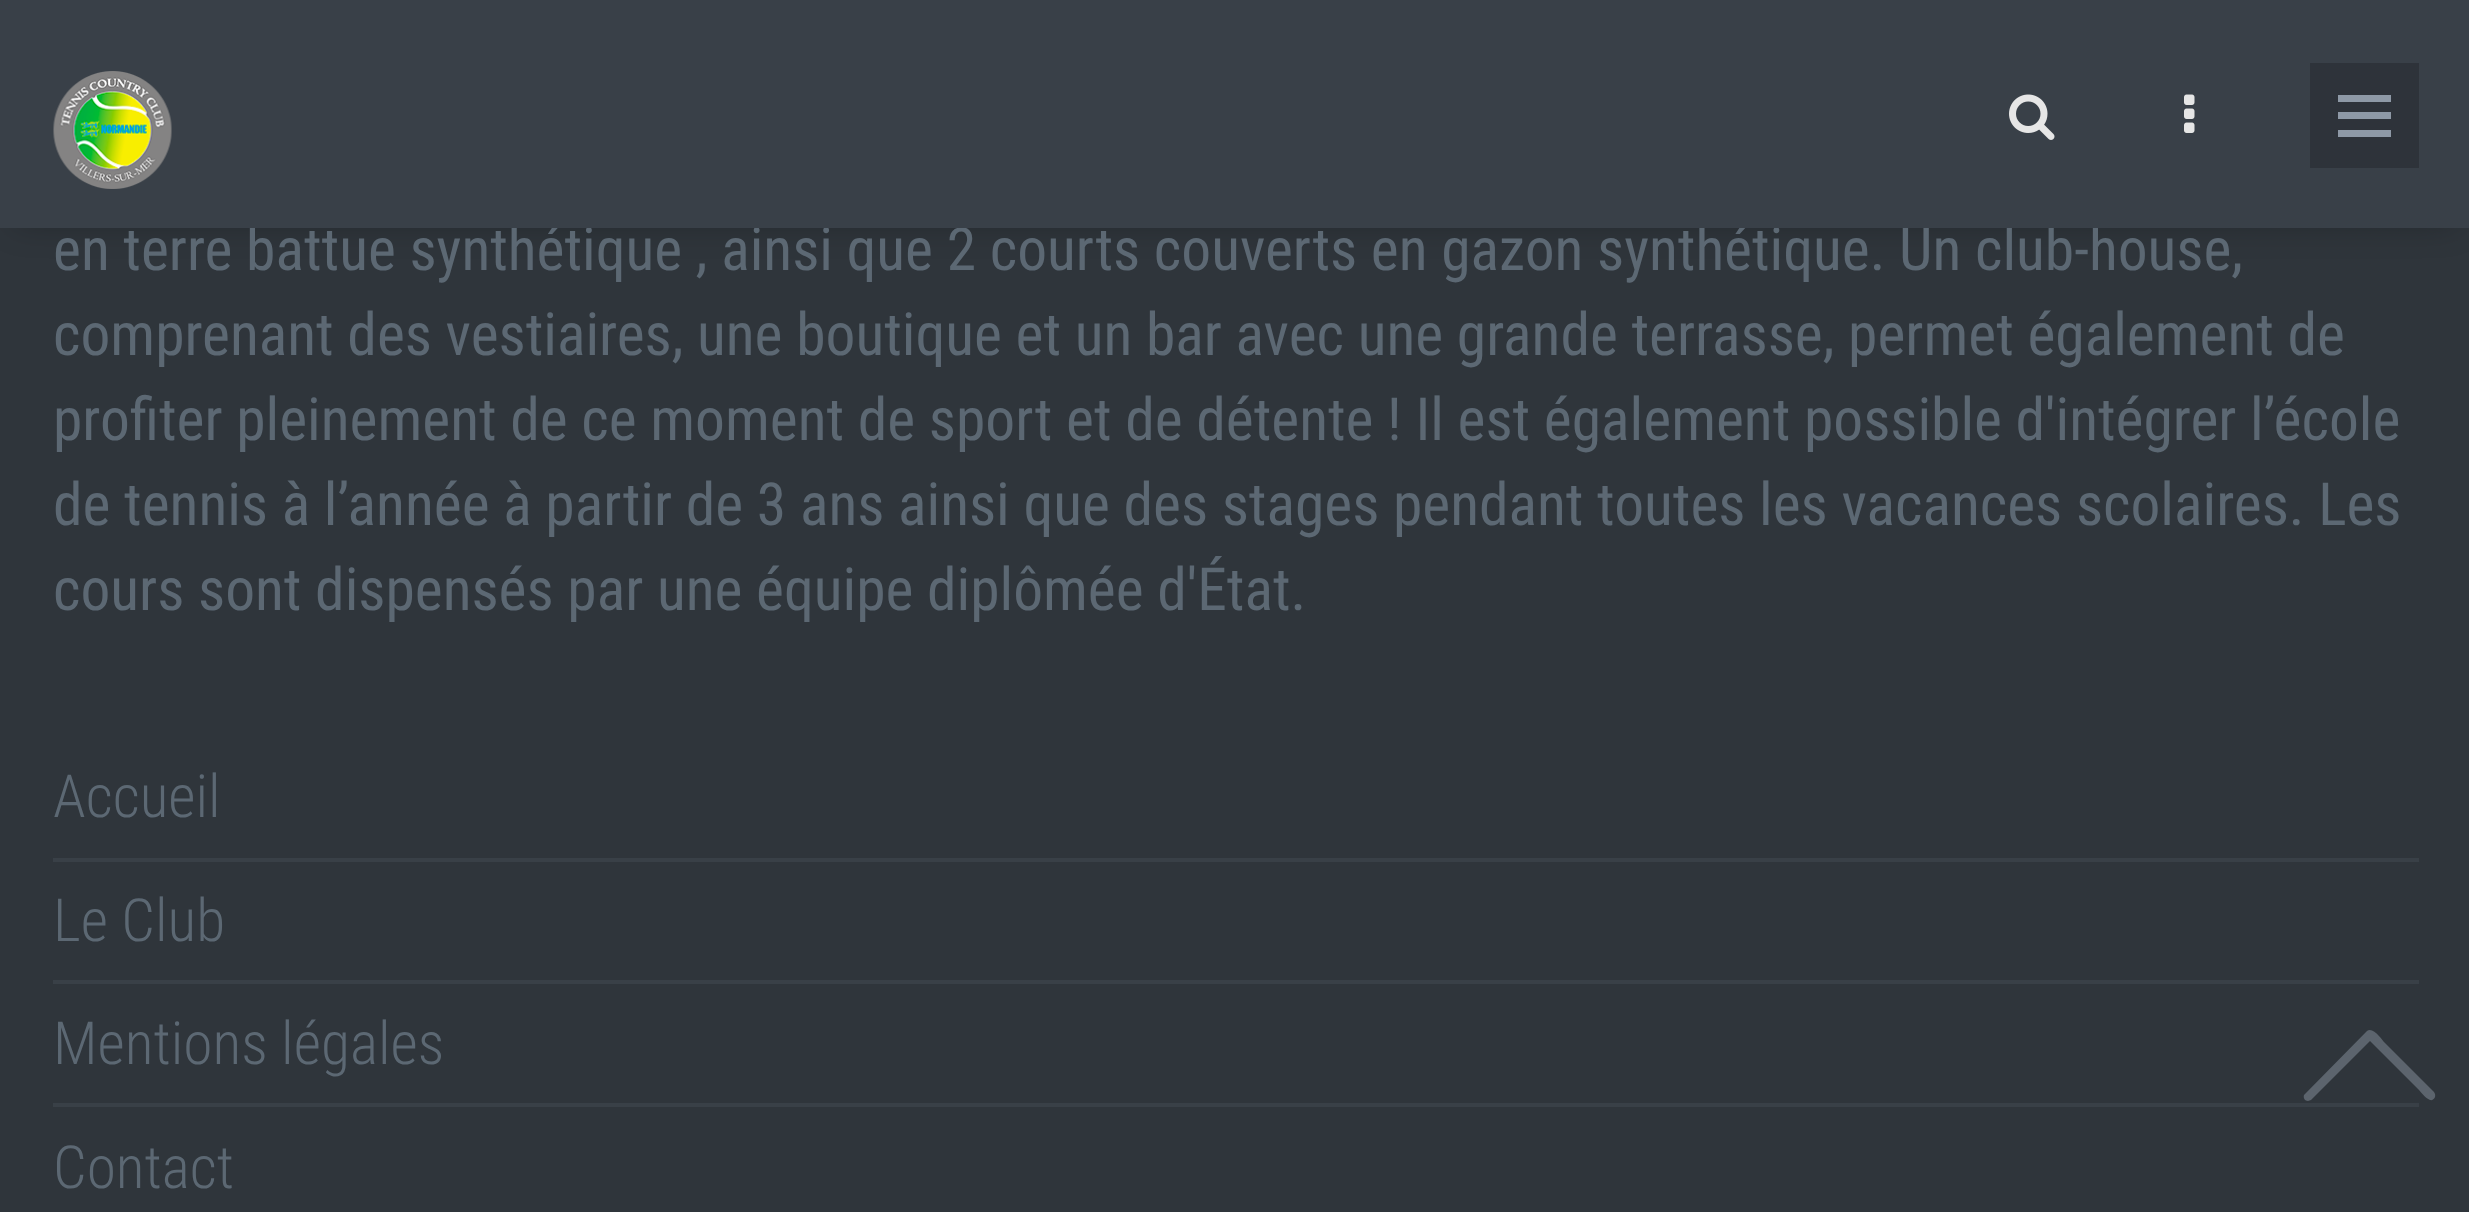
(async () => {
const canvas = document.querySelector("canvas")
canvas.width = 2469
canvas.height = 1212
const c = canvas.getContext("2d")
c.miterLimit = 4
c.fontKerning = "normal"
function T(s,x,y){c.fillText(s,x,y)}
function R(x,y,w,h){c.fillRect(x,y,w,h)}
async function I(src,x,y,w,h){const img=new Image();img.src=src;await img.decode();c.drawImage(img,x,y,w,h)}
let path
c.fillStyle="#2f353b"
R(0,0,2469,1212)
c.fillStyle="#00000040"
c.filter="blur(16px)"
c.beginPath()
c.rect(14,25,2443,199)
c.fill()
c.filter="none"
c.font="59.5px Roboto Condensed"
c.fillStyle="#5c6873"
T("en terre battue synthétique , ainsi que 2 courts couverts en gazon synthétique. Un club-house,",53,270)
c.fillStyle="#394048"
R(0,0,2469,228)
await I("1.png",53,71,119,118)
await I("2.png",2009,94,46,46)
await I("3.png",2184,94,11,39)
c.fillStyle="#2e333a"
R(2310,63,109,105)
c.fillStyle="#8e99a6"
R(2338,95,53,7)
R(2338,112,53,7)
R(2338,130,53,7)
c.fillStyle="#5c6873"
T("comprenant des vestiaires, une boutique et un bar avec une grande terrasse, permet également de",53,355)
T("profiter pleinement de ce moment de sport et de détente ! Il est également possible d'intégrer l’école",53,440)
T("de tennis à l’année à partir de 3 ans ainsi que des stages pendant toutes les vacances scolaires. Les",53,525)
T("cours sont dispensés par une équipe diplômée d'État.",53,610)
c.fillStyle="#394047"
R(53,858,2366,4)
c.font="300 59.5px Roboto Condensed"
c.fillStyle="#5c6873"
T("Accueil",53,817)
c.fillStyle="#394047"
R(53,980,2366,4)
c.fillStyle="#5c6873"
T("Le Club",53,941)
c.fillStyle="#394047"
R(53,1103,2366,4)
c.fillStyle="#5c6873"
T("Mentions légales",53,1064)
T("Contact",53,1188)
c.fillStyle="#5c646d"
path = new Path2D("M2304 1095c-1 3 1 6 4 6l3-1l59-59l48 48c4 4 7 9 12 11c4 1 7-4 4-8l-50-50c-1-1-11-16-17-11z")
c.fill(path)
})()
